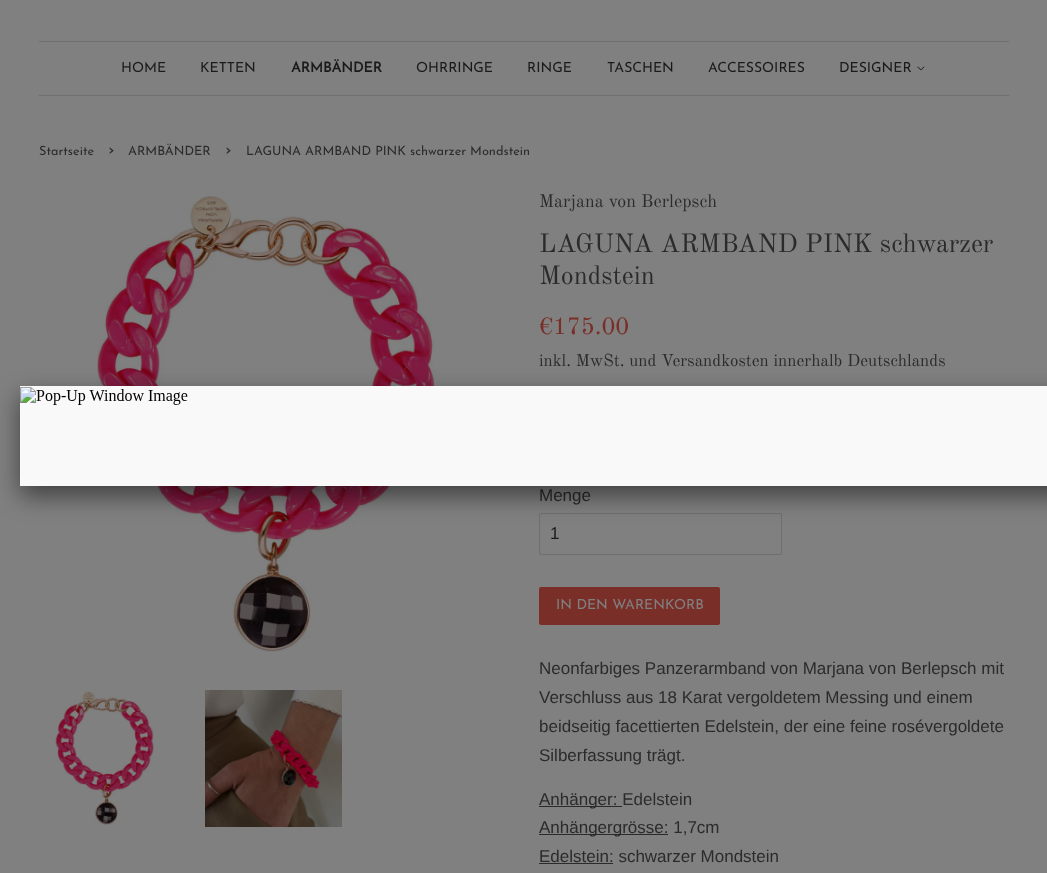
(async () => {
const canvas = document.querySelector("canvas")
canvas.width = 1047
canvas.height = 873
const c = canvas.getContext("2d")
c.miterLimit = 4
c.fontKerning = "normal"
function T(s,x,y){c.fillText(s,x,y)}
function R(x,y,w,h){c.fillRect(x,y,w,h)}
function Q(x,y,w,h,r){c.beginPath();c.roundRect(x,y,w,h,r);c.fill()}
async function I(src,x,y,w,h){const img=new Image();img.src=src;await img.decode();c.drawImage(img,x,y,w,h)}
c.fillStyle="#808080"
R(0,0,1047,873)
c.fillStyle="#6f6f6f"
R(39,41,970,1)
R(39,95,970,1)
c.font="100 14px Josefin Sans"
c.fillStyle="#1a1a1a"
T("HOME",121,72)
T("KETTEN",200,72)
c.font="bold 14px Josefin Sans"
T("ARMBÄNDER",291,72)
c.font="100 14px Josefin Sans"
T("OHRRINGE",416,72)
T("RINGE",527,72)
T("TASCHEN",607,72)
T("ACCESSOIRES",708,72)
T("DESIGNER",839,72)
await I("1.png",917,66,8,5)
c.font="100 12.75px Josefin Sans"
c.fillStyle="#2b2b2b"
T("Startseite",39,155)
c.font="100 18px Josefin Sans"
T("›",108,155)
c.font="100 12.75px Josefin Sans"
T("ARMBÄNDER",128,155)
c.font="100 18px Josefin Sans"
T("›",225,155)
c.font="100 12.75px Josefin Sans"
T("LAGUNA ARMBAND PINK schwarzer Mondstein",246,155)
await I("2.png",97,196,338,456)
await I("3.png",55,691,99,134)
await I("4.png",205,690,137,137)
c.font="18px Old Standard TT"
T("Marjana von Berlepsch",539,207)
c.font="26px Old Standard TT"
T("LAGUNA ARMBAND PINK schwarzer",539,252)
T("Mondstein",539,284)
c.font="24px Old Standard TT"
c.fillStyle="#7a2e28"
T("€175.00",539,334)
c.font="17px Old Standard TT"
c.fillStyle="#2b2b2b"
T("inkl. MwSt. und Versandkosten innerhalb Deutschlands",539,366)
c.font="17px Liberation Sans"
T("Menge",539,501)
c.beginPath()
c.roundRect(539.5,513.5,242,41,1.5)
c.strokeStyle="#6f6f6f"
c.stroke()
c.fillStyle="#1a1a1a"
T("1",550,539)
c.fillStyle="#7a2e28"
Q(539,587,181,38,2)
c.font="100 14px Josefin Sans"
c.fillStyle="#808080"
T("IN DEN WARENKORB",556,609)
c.font="17px Liberation Sans"
c.fillStyle="#2b2b2b"
T("Neonfarbiges Panzerarmband von Marjana von Berlepsch mit",539,674)
T("Verschluss aus 18 Karat vergoldetem Messing und einem",539,703)
T("beidseitig facettierten Edelstein, der eine feine rosévergoldete",539,732)
T("Silberfassung trägt.",539,761)
R(539,806,83,1)
T("Anhänger: Edelstein",539,805)
R(539,834,129,1)
T("Anhängergrösse: 1,7cm",539,833)
T("Edelstein: schwarzer Mondstein",539,862)
R(539,863,74,1)
c.fillStyle="#00000080"
c.filter="blur(12.5px)"
c.beginPath()
c.rect(20,396,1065,100)
c.fill()
c.filter="none"
c.fillStyle="#f9f9f9"
R(20,386,1027,100)
await I("5.png",20,387,168,18)
})()
